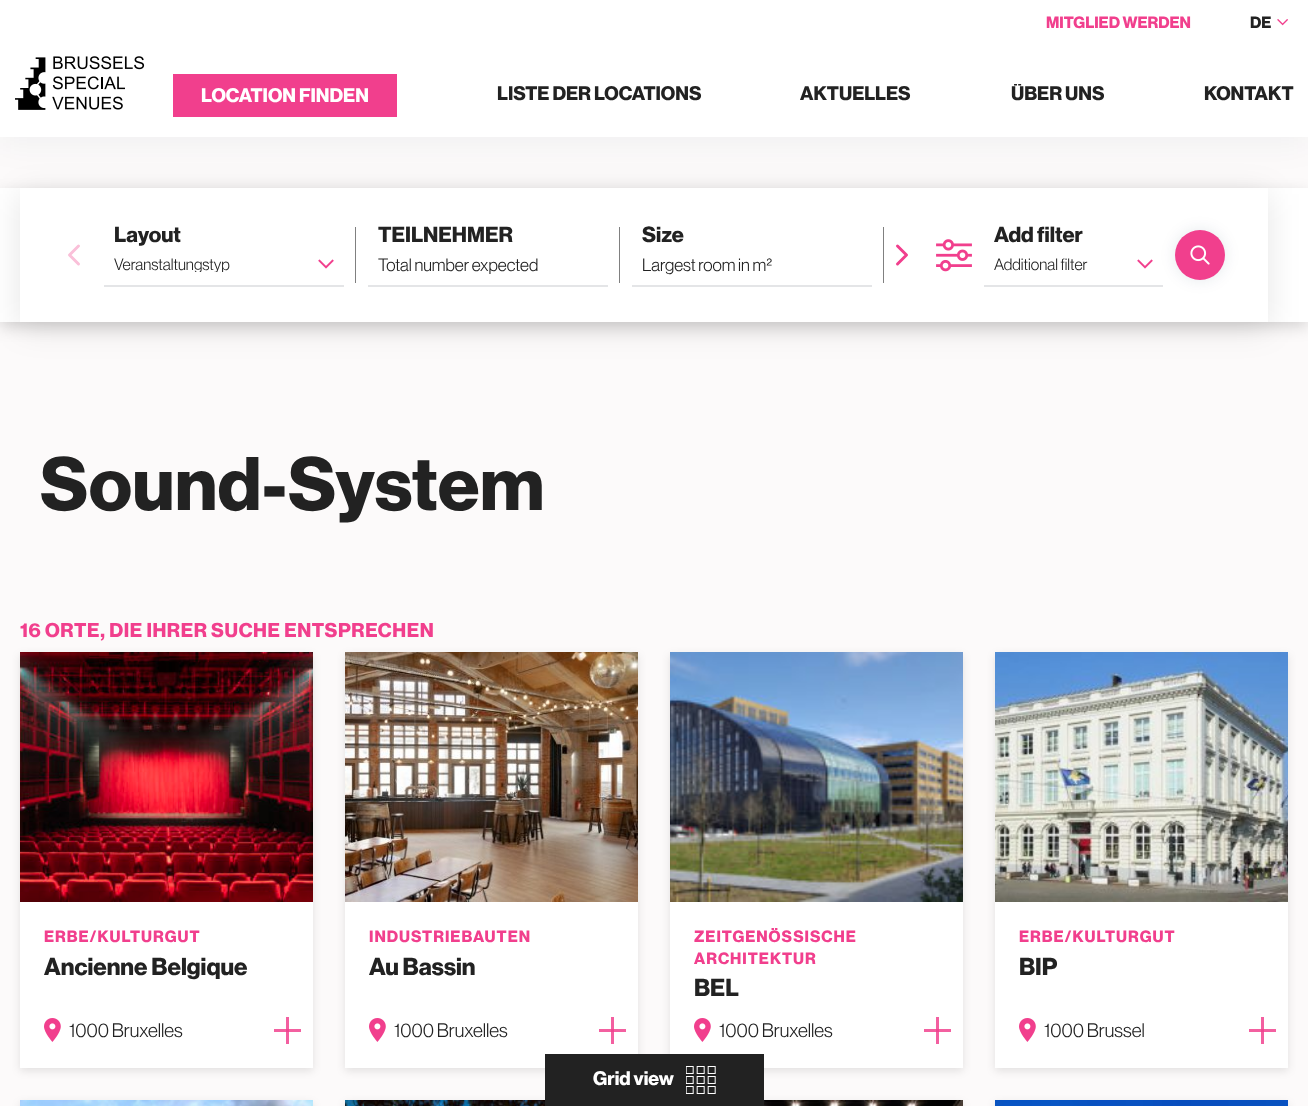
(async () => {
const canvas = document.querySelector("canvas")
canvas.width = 1308
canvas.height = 1106
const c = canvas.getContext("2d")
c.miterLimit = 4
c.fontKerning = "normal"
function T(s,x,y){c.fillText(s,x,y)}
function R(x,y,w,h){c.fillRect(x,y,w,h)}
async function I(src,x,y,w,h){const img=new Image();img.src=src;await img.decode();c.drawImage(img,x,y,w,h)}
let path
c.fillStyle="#fcfafa"
R(0,0,1308,1106)
c.fillStyle="#00000026"
c.filter="blur(7.5px)"
c.beginPath()
c.rect(0,193,1308,134)
c.fill()
c.filter="none"
c.fillStyle="#fff"
R(0,188,1308,134)
c.fillStyle="#091e420d"
c.filter="blur(16px)"
c.beginPath()
c.rect(0,6,1308,137)
c.fill()
c.filter="none"
c.fillStyle="#fff"
R(0,0,1308,137)
c.font="bold 16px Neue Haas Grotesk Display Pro"
c.fillStyle="#f13f8d"
T("MITGLIED WERDEN",1046,28)
c.fillStyle="#222"
T("DE",1250,28)
await I("1.png",1277,19,11,7)
await I("2.png",15,56,130,54)
c.fillStyle="#f13f8d"
R(173,74,224,43)
c.font="bold 19.25px Neue Haas Grotesk Display Pro"
c.fillStyle="#fff"
T("LOCATION FINDEN",201,102)
c.fillStyle="#222"
T("LISTE DER LOCATIONS",497,100)
T("AKTUELLES",800,100)
c.save()
c.beginPath()
c.rect(1011,84,93,24)
c.clip()
T("ÜBER UNS",1011,100)
c.restore()
T("KONTAKT",1204,100)
c.save()
path = new Path2D("M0 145h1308v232h-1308zm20 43h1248v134h-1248z")
c.clip(path,"evenodd")
c.fillStyle="#0000001a"
c.filter="blur(16px)"
c.beginPath()
c.rect(20,194,1248,134)
c.fill()
c.filter="none"
c.restore()
c.font="bold 21.5px Neue Haas Grotesk Display Pro"
T("Layout",114,242)
c.fillStyle="#e4e5e7"
R(104,285,240,2)
c.save()
c.beginPath()
c.rect(114,256,195,16)
c.clip()
c.font="16px Neue Haas Grotesk Display Pro"
c.fillStyle="#222"
T("Veranstaltungstyp",114,270)
c.restore()
await I("3.png",318,259,16,10)
c.fillStyle="#808080"
R(355,227,1,56)
c.fillStyle="#222"
T("TEILNEHMER",378,242)
c.fillStyle="#e4e5e7"
R(368,285,240,2)
c.font="17.5px Neue Haas Grotesk Display Pro"
c.fillStyle="#222"
T("Total number expected",378,271)
c.fillStyle="#808080"
R(619,227,1,56)
c.font="bold 21.5px Neue Haas Grotesk Display Pro"
c.fillStyle="#222"
T("Size",642,242)
c.fillStyle="#e4e5e7"
R(632,285,240,2)
c.font="17.5px Neue Haas Grotesk Display Pro"
c.fillStyle="#222"
T("Largest room in m²",642,271)
c.fillStyle="#808080"
R(883,227,1,56)
path = new Path2D("M78.5 264l-9-9l9-9")
c.strokeStyle="#fac0d9"
c.lineWidth=3
c.lineCap="round"
c.lineJoin="round"
c.stroke(path)
path = new Path2D("M897.5 264l9-9l-9-9")
c.strokeStyle="#f13f8d"
c.stroke(path)
await I("4.png",936,239,36,33)
c.font="bold 21.5px Neue Haas Grotesk Display Pro"
c.fillStyle="#222"
T("Add filter",994,242)
c.fillStyle="#e4e5e7"
R(984,285,179,2)
c.font="16px Neue Haas Grotesk Display Pro"
c.fillStyle="#222"
T("Additional filter",994,270)
await I("3.png",1137,259,16,10)
c.fillStyle="#091e421a"
c.filter="blur(7.5px)"
c.beginPath()
c.roundRect(1175,230,50,50,25)
c.fill()
c.filter="none"
c.fillStyle="#f13f8d"
c.beginPath()
c.arc(1200,255,25,0,7)
c.fill()
await I("5.png",1190,245,20,20)
c.fillStyle="#0000001a"
c.filter="blur(4.5px)"
c.beginPath()
c.rect(345,655,293,416)
c.fill()
c.filter="none"
c.fillStyle="#fff"
R(345,902,293,166)
c.fillStyle="#0000001a"
c.filter="blur(4.5px)"
c.beginPath()
c.rect(670,655,293,416)
c.fill()
c.filter="none"
c.fillStyle="#fff"
R(670,902,293,166)
c.fillStyle="#0000001a"
c.filter="blur(4.5px)"
c.beginPath()
c.rect(345,1103,293,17)
c.fill()
c.filter="none"
c.filter="blur(4.5px)"
c.beginPath()
c.rect(670,1103,293,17)
c.fill()
c.filter="none"
c.fillStyle="#222"
R(545,1054,219,52)
c.font="bold 19.25px Neue Haas Grotesk Display Pro"
c.fillStyle="#fff"
T("Grid view",593,1085)
await I("6.png",686,1066,30,28)
c.letterSpacing="0.6px"
c.font="bold 74px Neue Haas Grotesk Display Pro"
c.fillStyle="#222"
T("Sound-System",40,510)
c.fillStyle="#0000001a"
c.filter="blur(4.5px)"
c.beginPath()
c.rect(20,655,293,416)
c.fill()
c.filter="none"
c.font="bold 19.7px Neue Haas Grotesk Display Pro"
c.fillStyle="#f13f8d"
T("16 ORTE, DIE IHRER SUCHE ENTSPRECHEN",20,637)
c.fillStyle="#fff"
R(20,902,293,166)
c.fillStyle="#f360a0"
R(274,1029,27,3)
await I("7.png",20,652,293,250)
c.letterSpacing="1px"
c.font="bold 16px Neue Haas Grotesk Display Pro"
c.fillStyle="#f13f8d"
T("ERBE/KULTURGUT",44,942)
c.letterSpacing="0px"
c.font="bold 24px Neue Haas Grotesk Display Pro"
c.fillStyle="#222"
T("Ancienne Belgique",44,975)
await I("8.png",44,1018,17,24)
c.font="19.25px Neue Haas Grotesk Display Pro"
T("1000 Bruxelles",69,1037)
c.fillStyle="#f35fa0"
R(286,1017,3,27)
c.fillStyle="#f14490"
R(286,1029,3,3)
c.fillStyle="#f360a0"
R(599,1029,27,3)
await I("9.png",345,652,293,250)
c.letterSpacing="1px"
c.font="bold 16px Neue Haas Grotesk Display Pro"
c.fillStyle="#f13f8d"
T("INDUSTRIEBAUTEN",369,942)
c.letterSpacing="0px"
c.font="bold 24px Neue Haas Grotesk Display Pro"
c.fillStyle="#222"
T("Au Bassin",369,975)
await I("8.png",369,1018,17,24)
c.font="19.25px Neue Haas Grotesk Display Pro"
T("1000 Bruxelles",394,1037)
c.fillStyle="#f35fa0"
R(611,1017,3,27)
c.fillStyle="#f14490"
R(611,1029,3,3)
c.fillStyle="#f360a0"
R(924,1029,27,3)
await I("10.png",670,652,293,250)
c.letterSpacing="1px"
c.font="bold 16px Neue Haas Grotesk Display Pro"
c.fillStyle="#f13f8d"
T("ZEITGENÖSSISCHE",694,942)
T("ARCHITEKTUR",694,964)
c.letterSpacing="0px"
c.font="bold 24px Neue Haas Grotesk Display Pro"
c.fillStyle="#222"
T("BEL",694,996)
await I("8.png",694,1018,17,24)
c.font="19.25px Neue Haas Grotesk Display Pro"
T("1000 Bruxelles",719,1037)
c.fillStyle="#f35fa0"
R(936,1017,3,27)
c.fillStyle="#f14490"
R(936,1029,3,3)
c.fillStyle="#0000001a"
c.filter="blur(4.5px)"
c.beginPath()
c.rect(995,655,293,416)
c.fill()
c.filter="none"
c.fillStyle="#fff"
R(995,902,293,166)
c.fillStyle="#f360a0"
R(1249,1029,27,3)
await I("11.png",995,652,293,250)
c.letterSpacing="1px"
c.font="bold 16px Neue Haas Grotesk Display Pro"
c.fillStyle="#f13f8d"
T("ERBE/KULTURGUT",1019,942)
c.letterSpacing="0px"
c.font="bold 24px Neue Haas Grotesk Display Pro"
c.fillStyle="#222"
T("BIP",1019,975)
await I("8.png",1019,1018,17,24)
c.font="19.25px Neue Haas Grotesk Display Pro"
T("1000 Brussel",1044,1037)
c.fillStyle="#f35fa0"
R(1261,1017,3,27)
c.fillStyle="#f14490"
R(1261,1029,3,3)
c.fillStyle="#0000001a"
c.filter="blur(4.5px)"
c.beginPath()
c.rect(20,1103,293,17)
c.fill()
c.filter="none"
await I("12.png",20,1100,293,6)
await I("13.png",345,1100,200,6)
await I("14.png",764,1100,199,6)
c.filter="blur(4.5px)"
c.beginPath()
c.rect(995,1103,293,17)
c.fill()
c.filter="none"
await I("15.png",995,1100,293,6)
})()
